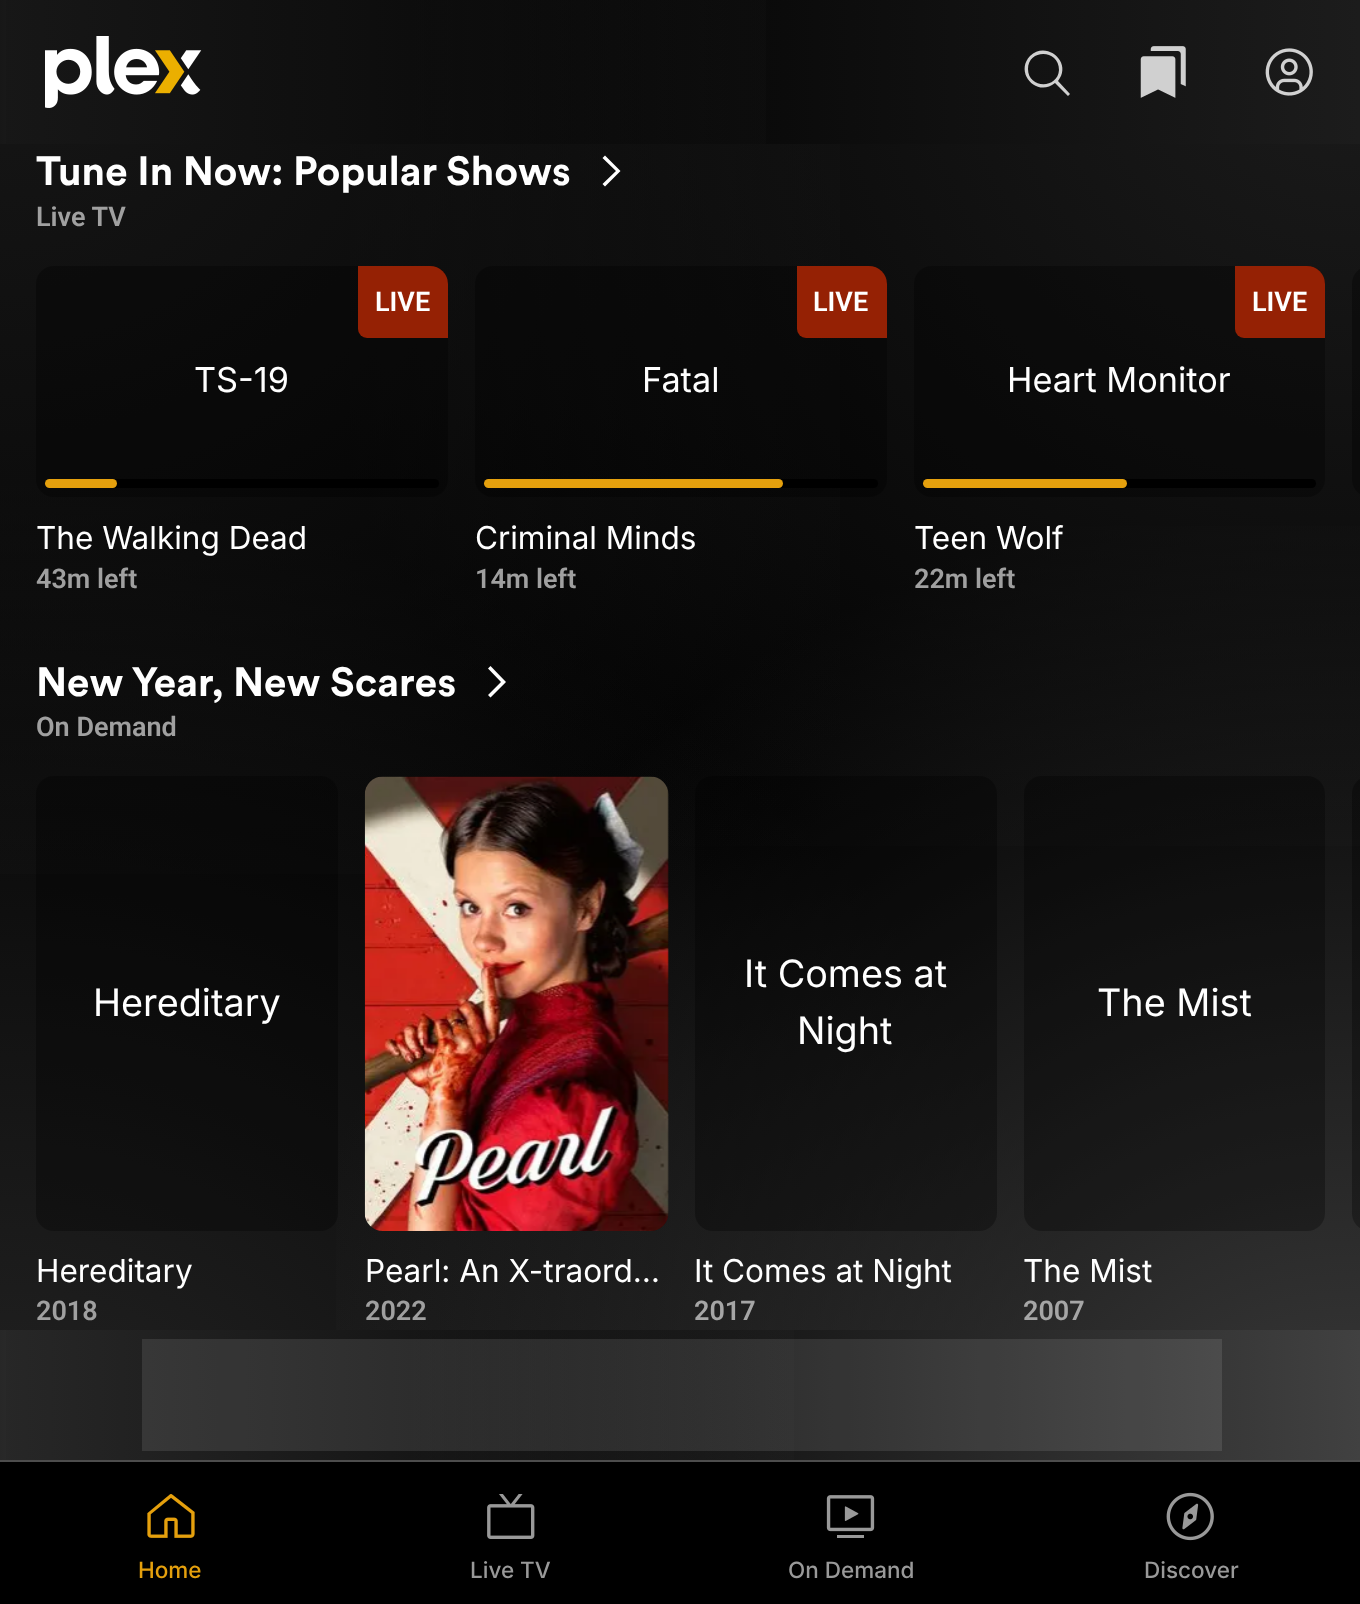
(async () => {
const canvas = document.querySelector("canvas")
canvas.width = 1360
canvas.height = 1604
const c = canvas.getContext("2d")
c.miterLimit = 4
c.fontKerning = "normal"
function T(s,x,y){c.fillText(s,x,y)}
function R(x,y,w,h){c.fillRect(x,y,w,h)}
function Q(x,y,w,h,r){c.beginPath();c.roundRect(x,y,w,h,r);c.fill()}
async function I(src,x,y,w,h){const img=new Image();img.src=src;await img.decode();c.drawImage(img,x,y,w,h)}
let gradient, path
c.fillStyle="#fff"
R(0,0,1360,1604)
gradient = c.createLinearGradient(0,72,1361,72)
gradient.addColorStop(.3,"#000")
gradient.addColorStop(1,"#1c1c1c")
c.fillStyle = gradient
R(6,0,1354,144)
gradient = c.createLinearGradient(0,72,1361,72)
gradient.addColorStop(0,"#171717")
gradient.addColorStop(.7,"#17171700")
c.fillStyle = gradient
R(0,0,766,144)
await I("1.png",45,36,157,72)
c.fillStyle="#d0d0d0"
path = new Path2D("M1070 94l-12-13c15-18-11-41-28-25c-16 17 7 42 25 27l13 13zm-42-25c0-20 31-20 31 1c-1 19-31 19-31-1z")
c.fill(path)
await I("2.png",1140,46,46,52)
await I("3.png",1265,48,48,48)
gradient = c.createRadialGradient(0,1604,0,0,1604,1604)
gradient.addColorStop(0,"#272727")
gradient.addColorStop(.7,"#000")
c.fillStyle = gradient
R(0,144,1360,1186)
gradient = c.createRadialGradient(1361,1604,0,1361,1604,1604)
gradient.addColorStop(0,"#414141")
gradient.addColorStop(.7,"#41414100")
c.fillStyle = gradient
R(336,526,1024,804)
gradient = c.createRadialGradient(1361,0,0,1361,0,1604)
gradient.addColorStop(0,"#1c1c1c")
gradient.addColorStop(.7,"#1c1c1c00")
c.fillStyle = gradient
R(350,144,1010,702)
gradient = c.createRadialGradient(0,0,0,0,0,1604)
gradient.addColorStop(0,"#171717")
gradient.addColorStop(.7,"#17171700")
c.fillStyle = gradient
R(0,144,840,730)
c.font="bold 40.5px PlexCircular"
c.fillStyle="#fff"
T("Tune In Now: Popular Shows",36,185)
path = new Path2D("M620.5 171l-15.5 15.5l-2.5-2.5l13.5-13l-13.5-13l2.5-2.5z")
c.fill(path)
c.font="600 27px Roboto"
c.fillStyle="#a0a0a0"
T("Live TV",36,226)
c.fillStyle="#0000004d"
Q(36,266,412,231,18)
c.fillStyle="#952104"
c.beginPath()
c.roundRect(358,266,90,72,[0,18,0,9])
c.fill()
c.fillStyle="#fff"
T("LIVE",375,311)
c.fillStyle="#000"
Q(45,479,394,9,4.5)
c.fillStyle="#e5a00d"
Q(45,479,72,9,4.5)
c.font="34.25px Inter"
c.fillStyle="#fff"
T("TS-19",194,392)
c.font="31.5px Inter"
T("The Walking Dead",36,549)
c.font="600 27px Roboto"
c.fillStyle="#a0a0a0"
T("43m left",36,588)
c.fillStyle="#0000004d"
Q(475,266,412,231,18)
c.fillStyle="#952104"
c.beginPath()
c.roundRect(797,266,90,72,[0,18,0,9])
c.fill()
c.fillStyle="#fff"
T("LIVE",813,311)
c.fillStyle="#000"
Q(484,479,394,9,4.5)
c.fillStyle="#e5a00d"
Q(484,479,299,9,4.5)
c.font="34.25px Inter"
c.fillStyle="#fff"
T("Fatal",642,392)
c.font="31.5px Inter"
T("Criminal Minds",475,549)
c.font="600 27px Roboto"
c.fillStyle="#a0a0a0"
T("14m left",475,588)
c.fillStyle="#0000004d"
Q(914,266,411,231,18)
c.fillStyle="#952104"
c.beginPath()
c.roundRect(1235,266,90,72,[0,18,0,9])
c.fill()
c.fillStyle="#fff"
T("LIVE",1252,311)
c.fillStyle="#000"
Q(923,479,393,9,4.5)
c.fillStyle="#e5a00d"
Q(923,479,204,9,4.5)
c.font="34.25px Inter"
c.fillStyle="#fff"
T("Heart Monitor",1007,392)
c.font="31.5px Inter"
T("Teen Wolf",914,549)
c.font="600 27px Roboto"
c.fillStyle="#a0a0a0"
T("22m left",914,588)
c.fillStyle="#0000004d"
path = new Path2D("M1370 266h-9v231h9c-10 0-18-8-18-18v-195c0-10 8-18 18-18z")
c.fill(path)
c.font="bold 40.5px PlexCircular"
c.fillStyle="#fff"
T("New Year, New Scares",36,696)
path = new Path2D("M506 682l-15.5 15.5l-2.5-2.5l13-13l-13-13.5l2.5-2.5z")
c.fill(path)
c.font="600 27px Roboto"
c.fillStyle="#a0a0a0"
T("On Demand",36,736)
c.fillStyle="#0000004d"
Q(36,776,302,455,18)
c.font="37.75px Inter"
c.fillStyle="#fff"
T("Hereditary",93,1016)
c.font="31.5px Inter"
T("Hereditary",36,1282)
c.font="600 27px Roboto"
c.fillStyle="#a0a0a0"
T("2018",36,1320)
c.fillStyle="#0000004d"
Q(365,776,303,455,18)
await I("4.png",364,776,305,455)
c.font="31.5px Inter"
c.fillStyle="#fff"
T("Pearl: An X-traord…",365,1282)
c.font="600 27px Roboto"
c.fillStyle="#a0a0a0"
T("2022",365,1320)
c.fillStyle="#0000004d"
Q(695,776,302,455,18)
c.font="37.75px Inter"
c.fillStyle="#fff"
T("It Comes at",744,987)
T("Night",797,1044)
c.font="31.5px Inter"
T("It Comes at Night",694,1282)
c.font="600 27px Roboto"
c.fillStyle="#a6a6a6"
T("2017",694,1320)
c.fillStyle="#0000004d"
Q(1024,776,301,455,18)
c.font="37.75px Inter"
c.fillStyle="#fff"
T("The Mist",1097,1016)
c.font="31.5px Inter"
T("The Mist",1023,1282)
c.font="600 27px Roboto"
c.fillStyle="#a6a6a6"
T("2007",1023,1320)
c.fillStyle="#0000004d"
path = new Path2D("M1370 776h-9v455h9c-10 0-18-8-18-18v-419c0-10 8-18 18-18z")
c.fill(path)
gradient = c.createLinearGradient(0,1395,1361,1395)
gradient.addColorStop(.3,"#000")
gradient.addColorStop(1,"#414141")
c.fillStyle = gradient
R(6,1330,1354,130)
gradient = c.createLinearGradient(0,1395,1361,1395)
gradient.addColorStop(0,"#272727")
gradient.addColorStop(.7,"#27272700")
c.fillStyle = gradient
R(0,1330,794,130)
c.fillStyle="#ffffff1a"
R(142,1339,1080,112)
c.fillStyle="#000"
R(0,1462,1360,142)
c.fillStyle="#4d4d4d"
R(0,1460,1360,2)
await I("5.png",147,1494,48,44)
c.font="500 22.5px Inter"
c.fillStyle="#e5a00d"
T("Home",138,1578)
await I("6.png",487,1494,48,45)
c.fillStyle="#999"
T("Live TV",470,1578)
await I("7.png",826,1495,49,43)
T("On Demand",788,1578)
await I("8.png",1166,1492,48,49)
T("Discover",1144,1578)
})()
